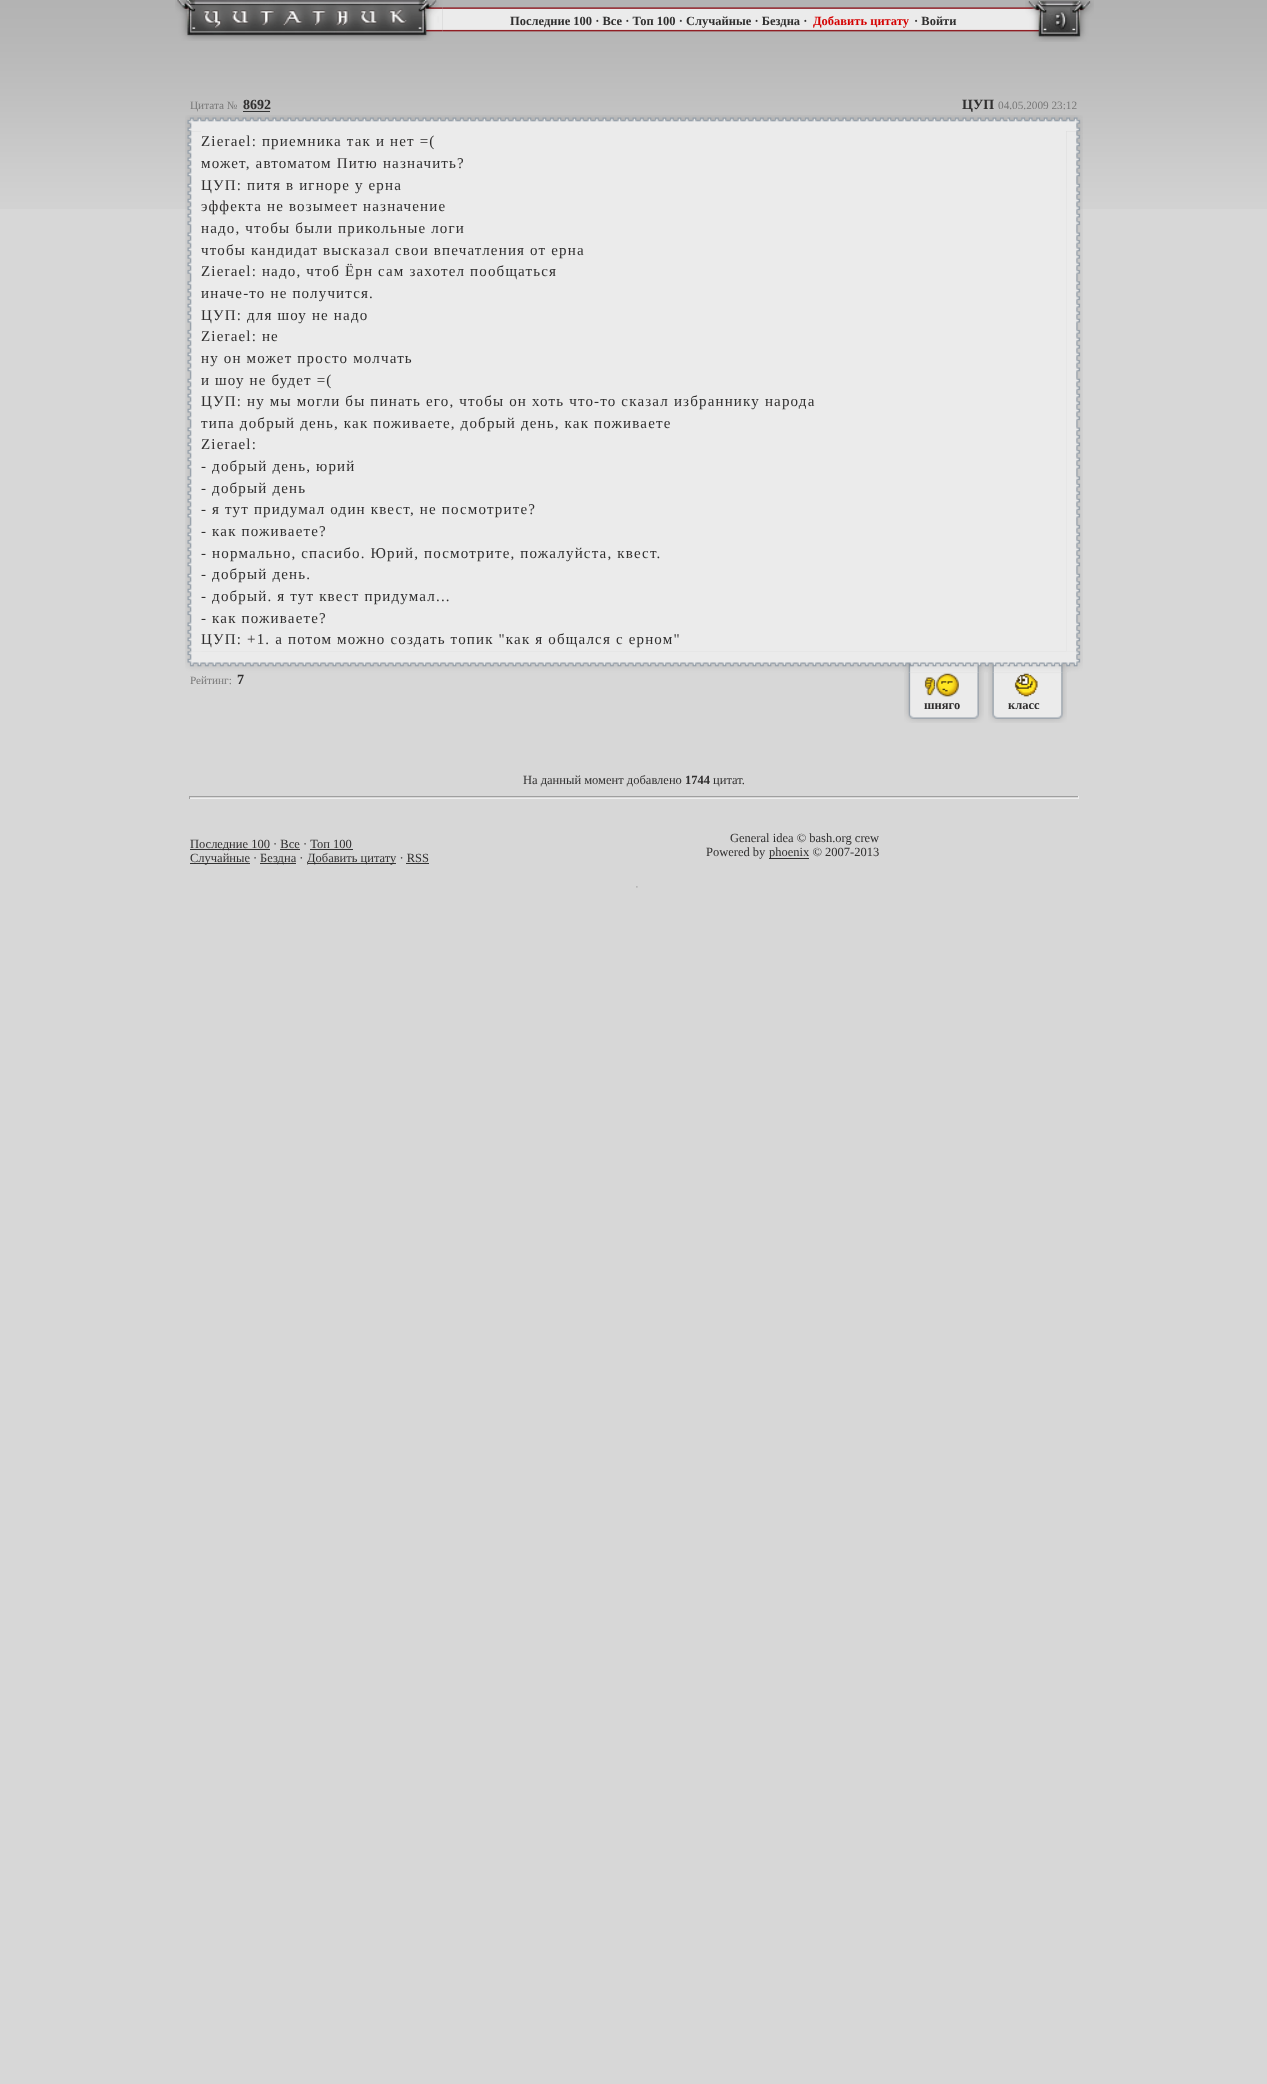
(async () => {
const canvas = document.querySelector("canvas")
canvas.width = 1267
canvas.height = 2084
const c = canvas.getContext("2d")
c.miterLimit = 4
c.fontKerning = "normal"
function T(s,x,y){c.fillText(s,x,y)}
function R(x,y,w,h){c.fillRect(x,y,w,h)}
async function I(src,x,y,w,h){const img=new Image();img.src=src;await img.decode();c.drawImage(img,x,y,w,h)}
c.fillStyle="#d7d7d7"
R(0,0,1267,2084)
await I("1.png",0,0,1267,209)
await I("3.png",442,7,583,25)
await I("2.png",175,0,268,41)
c.font="bold 12.5px Liberation Serif"
c.fillStyle="#302f2f"
T("Последние 100 · Все · Топ 100 · Случайные · Бездна ·",510,25)
c.fillStyle="#d50303"
T("Добавить цитату",813,25)
c.fillStyle="#302f2f"
T("· Войти",914,25)
await I("4.png",1025,0,69,42)
await I("5.png",185,115,898,17)
c.font="11.25px Liberation Serif"
c.fillStyle="#787878"
T("Цитата №",190,109)
c.font="bold 14px Liberation Serif"
c.fillStyle="#302f2f"
T("8692",243,109)
c.fillStyle="#333"
R(243,111,27,1)
c.fillStyle="#302f2f"
T("ЦУП",962,109)
c.font="11.25px Liberation Serif"
c.fillStyle="#787878"
T("04.05.2009 23:12",998,109)
await I("6.png",185,131,17,521)
c.fillStyle="#ebebeb"
R(201,131,865,520)
c.letterSpacing="1.17px"
c.font="15px Liberation Serif"
c.fillStyle="#302f2f"
T("Zierael: приемника так и нет =(",201,146)
T("может, автоматом Питю назначить?",201,168)
T("ЦУП: питя в игноре у ерна",201,190)
T("эффекта не возымеет назначение",201,211)
T("надо, чтобы были прикольные логи",201,233)
T("чтобы кандидат высказал свои впечатления от ерна",201,255)
T("Zierael: надо, чтоб Ёрн сам захотел пообщаться",201,276)
T("иначе-то не получится.",201,298)
T("ЦУП: для шоу не надо",201,320)
T("Zierael: не",201,341)
T("ну он может просто молчать",201,363)
T("и шоу не будет =(",201,385)
T("ЦУП: ну мы могли бы пинать его, чтобы он хоть что-то сказал избраннику народа",201,406)
T("типа добрый день, как поживаете, добрый день, как поживаете",201,428)
T("Zierael:",201,449)
T("- добрый день, юрий",201,471)
T("- добрый день",201,493)
T("- я тут придумал один квест, не посмотрите?",201,514)
T("- как поживаете?",201,536)
T("- нормально, спасибо. Юрий, посмотрите, пожалуйста, квест.",201,558)
T("- добрый день.",201,579)
T("- добрый. я тут квест придумал...",201,601)
T("- как поживаете?",201,623)
T("ЦУП: +1. а потом можно создать топик \"как я общался с ерном\"",201,644)
await I("7.png",1066,131,17,521)
await I("8.png",185,651,898,22)
c.letterSpacing="0px"
c.font="11.25px Liberation Serif"
c.fillStyle="#787878"
T("Рейтинг:",190,684)
c.font="bold 14px Liberation Serif"
c.fillStyle="#302f2f"
T("7",237,684)
await I("9.png",904,672,80,51)
await I("10.png",924,673,35,24)
c.font="bold 12.5px Liberation Serif"
T("шняго",924,709)
await I("11.png",988,672,79,51)
await I("12.png",1014,673,24,24)
T("класс",1008,709)
c.font="12.5px Liberation Serif"
T("На данный момент добавлено",523,784)
c.font="bold 12.5px Liberation Serif"
T("1744",685,784)
c.font="12.5px Liberation Serif"
T("цитат.",713,784)
c.fillStyle="#9f9f9f"
R(189,796,890,1)
c.fillStyle="#eee"
R(1078,796,1,3)
R(189,798,890,1)
c.fillStyle="#9f9f9f"
R(189,796,1,3)
c.fillStyle="#333"
R(190,849,80,1)
c.fillStyle="#302f2f"
T("Последние 100 · Все · Топ 100",190,848)
c.fillStyle="#333"
R(280,849,20,1)
R(310,849,43,1)
R(190,863,60,1)
c.fillStyle="#302f2f"
T("Случайные ·",190,862)
c.fillStyle="#333"
R(260,863,36,1)
c.fillStyle="#302f2f"
T("Бездна ·",260,862)
c.fillStyle="#333"
R(308,863,88,1)
c.fillStyle="#302f2f"
T("Добавить цитату · RSS",307,862)
c.fillStyle="#333"
R(406,863,23,1)
c.fillStyle="#302f2f"
T("General idea © bash.org crew",730,842)
T("Powered by",706,856)
c.fillStyle="#333"
R(769,858,40,1)
c.fillStyle="#302f2f"
T("phoenix © 2007-2013",769,856)
await I("13.png",636,886,2,2)
})()
